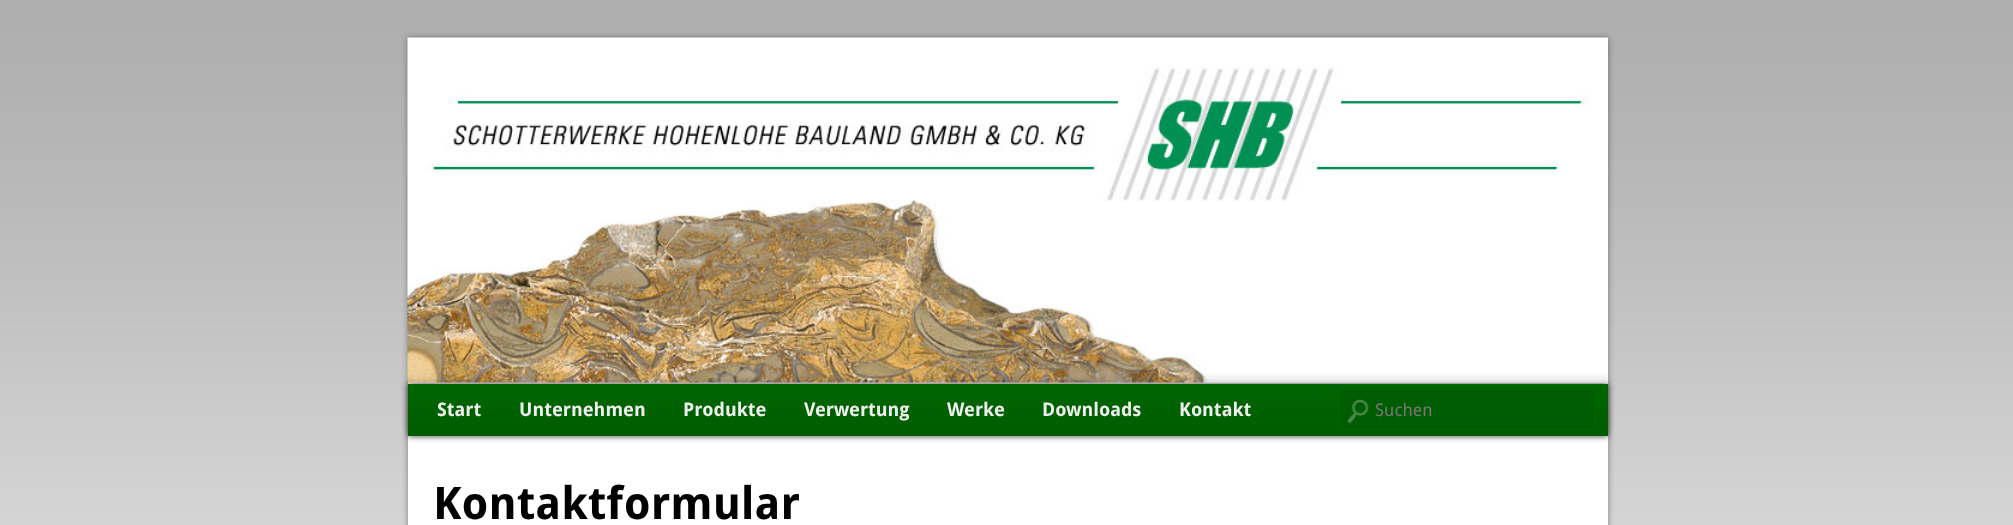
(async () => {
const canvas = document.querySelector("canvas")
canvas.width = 2013
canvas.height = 525
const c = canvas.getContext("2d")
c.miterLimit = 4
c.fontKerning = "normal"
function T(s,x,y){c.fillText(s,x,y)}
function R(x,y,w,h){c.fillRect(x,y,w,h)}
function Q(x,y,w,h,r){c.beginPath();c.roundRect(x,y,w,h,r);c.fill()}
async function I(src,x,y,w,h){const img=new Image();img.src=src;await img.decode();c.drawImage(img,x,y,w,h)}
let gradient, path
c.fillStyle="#fff"
R(0,0,2013,525)
await I("1.png",0,0,2013,525)
c.fillStyle="#00000066"
c.filter="blur(3px)"
c.beginPath()
c.rect(408,38,1200,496)
c.fill()
c.filter="none"
c.fillStyle="#fff"
R(408,38,1200,487)
c.fillStyle="#333"
c.filter="blur(3px)"
c.beginPath()
c.rect(408,384,1200,52)
c.fill()
c.filter="none"
await I("2.png",407,37,1201,346)
gradient = c.createLinearGradient(1008,384,1008,436)
gradient.addColorStop(0,"#060")
gradient.addColorStop(1,"#005c00")
c.fillStyle = gradient
R(408,384,1200,52)
c.font="bold 18.75px Droid Sans"
c.fillStyle="#eee"
T("Start",437,416)
T("Unternehmen",519,416)
T("Produkte",683,416)
T("Verwertung",804,416)
T("Werke",947,416)
T("Downloads",1042,416)
T("Kontakt",1179,416)
c.fillStyle="#005c00"
Q(1339,390,256,40,2.5)
await I("3.png",1347,399,22,25)
c.fillStyle="#005300"
path = new Path2D("M1341 392h251c1 0 2 1 2 2v-3h-253c-1 0-1 2-1 3z")
c.fill(path)
c.beginPath()
c.roundRect(1339.5,390.5,255,39,2)
c.strokeStyle="#060"
c.stroke()
c.font="17.5px Droid Sans"
c.fillStyle="#757575"
T("Suchen",1375,416)
c.font="bold 45px Droid Sans"
c.fillStyle="#000"
T("Kontaktformular",433,519)
})()
